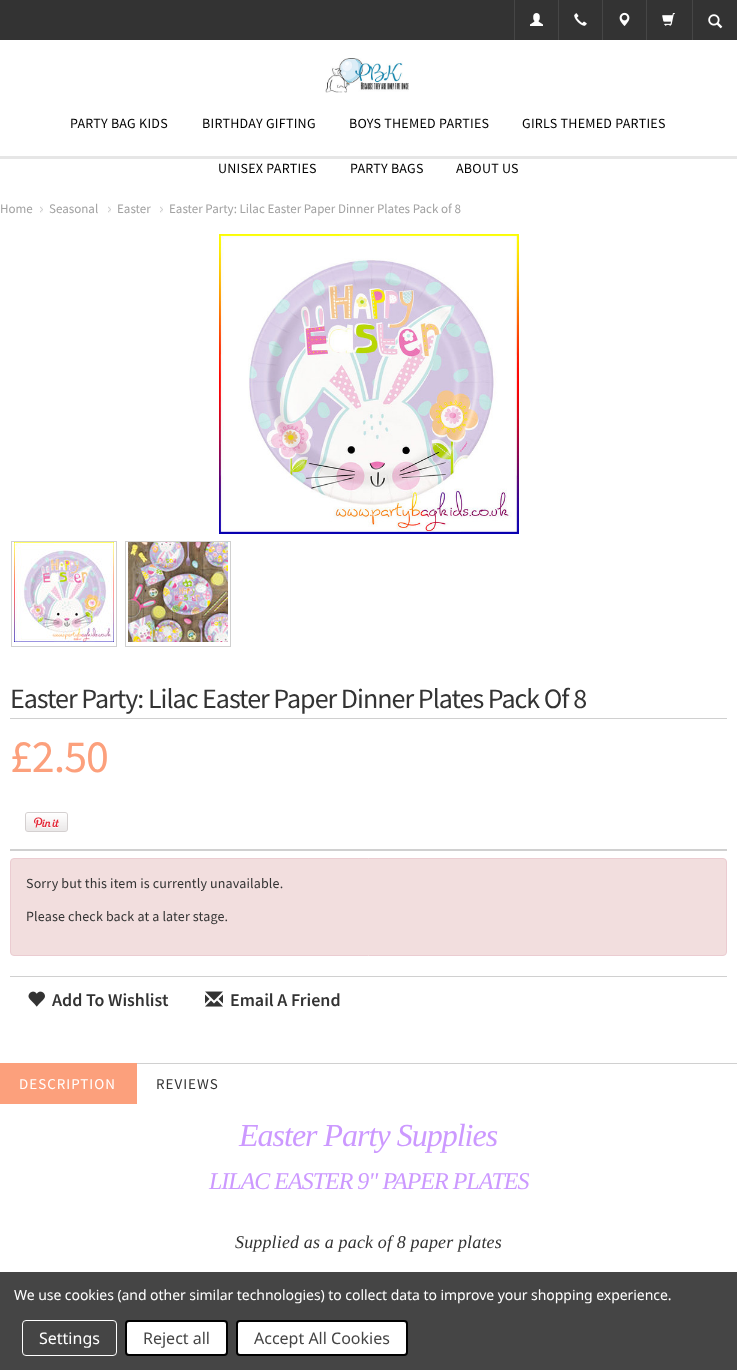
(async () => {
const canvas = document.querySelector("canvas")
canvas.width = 737
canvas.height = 1370
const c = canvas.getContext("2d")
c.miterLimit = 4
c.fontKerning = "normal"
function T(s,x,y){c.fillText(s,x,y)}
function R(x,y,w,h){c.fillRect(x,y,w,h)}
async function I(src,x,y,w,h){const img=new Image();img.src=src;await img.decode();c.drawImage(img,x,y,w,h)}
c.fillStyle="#fff"
R(0,0,737,1370)
c.fillStyle="#e6e6e6"
R(0,156,737,3)
c.fillStyle="#333"
R(0,0,737,40)
c.fillStyle="#464646"
R(514,0,1,40)
await I("1.png",530,13,13,13)
R(558,0,1,40)
await I("2.png",574,13,13,13)
R(602,0,1,40)
await I("3.png",619,12,11,14)
R(646,0,1,40)
await I("4.png",662,13,13,13)
R(692,0,1,40)
await I("5.png",708,14,15,15)
await I("6.png",325,58,84,35)
c.letterSpacing="0.25px"
c.font="14px Source Sans Pro"
c.fillStyle="#000"
T("PARTY BAG KIDS",70,128)
T("BIRTHDAY GIFTING",202,128)
T("BOYS THEMED PARTIES",349,128)
T("GIRLS THEMED PARTIES",522,128)
T("UNISEX PARTIES",218,173)
T("PARTY BAGS",350,173)
T("ABOUT US",456,173)
c.letterSpacing="0px"
c.font="13px Source Sans Pro"
c.fillStyle="#a2a2a2"
T("Home",0,213)
await I("7.png",40,206,3,7)
T("Seasonal",49,213)
await I("7.png",108,206,3,7)
T("Easter",117,213)
await I("7.png",160,206,3,7)
T("Easter Party: Lilac Easter Paper Dinner Plates Pack of 8",169,213)
await I("8.png",219,234,300,300)
c.strokeStyle="#d0d0d0"
c.strokeRect(11.5,541.5,105,105)
await I("9.png",14,542,100,100)
c.strokeRect(125.5,541.5,105,105)
await I("10.png",128,542,100,100)
c.letterSpacing="-1px"
c.font="28px Source Sans Pro"
c.fillStyle="#333"
T("Easter Party: Lilac Easter Paper Dinner Plates Pack Of 8",10,708)
c.fillStyle="#d0d0d0"
R(10,718,717,1)
c.font="46px Source Sans Pro"
c.fillStyle="#fca07c"
T("£2.50",10,772)
await I("11.png",25,812,43,20)
c.fillStyle="#d0d0d0"
R(10,849,717,2)
R(10,976,717,1)
c.fillStyle="#f2dede"
c.beginPath()
c.roundRect(10.5,858.5,716,97,3.5)
c.fill()
c.strokeStyle="#ebccd1"
c.stroke()
c.letterSpacing="0.15px"
c.font="14px Source Sans Pro"
c.fillStyle="#333"
T("Sorry but this item is currently unavailable.",26,888)
T("Please check back at a later stage.",26,921)
await I("12.png",28,991,17,16)
c.letterSpacing="0px"
c.font="600 18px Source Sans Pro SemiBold"
T("Add To Wishlist",52,1006)
await I("13.png",205,991,18,16)
T("Email A Friend",230,1006)
c.fillStyle="#d0d0d0"
R(137,1063,600,1)
c.fillStyle="#fca07c"
R(0,1063,137,41)
c.letterSpacing="1px"
c.font="15px Source Sans Pro"
c.fillStyle="#fff"
T("DESCRIPTION",19,1089)
c.fillStyle="#333"
T("REVIEWS",156,1089)
c.letterSpacing="-1px"
c.font="italic 32px Liberation Serif"
c.fillStyle="#c9f"
T("Easter Party Supplies",239,1146)
c.font="italic 24px Liberation Serif"
T("LILAC EASTER 9\" PAPER PLATES",209,1189)
c.letterSpacing="0.15px"
c.font="italic 18px Liberation Serif"
c.fillStyle="#333"
T("Supplied as a pack of 8 paper plates",235,1248)
c.fillStyle="#454545"
R(0,1272,737,98)
c.letterSpacing="-0.05px"
c.font="14px Noto Sans"
c.fillStyle="#fff"
T("We use cookies (and other similar technologies) to collect data to improve your shopping experience.",14,1300)
c.beginPath()
c.roundRect(22.5,1320.5,94,35,3.5)
c.strokeStyle="#fff"
c.stroke()
c.letterSpacing="0px"
c.font="16px Noto Sans"
T("Settings",39,1344)
c.beginPath()
c.roundRect(126,1321,101,34,3)
c.fill()
c.strokeStyle="#000"
c.lineWidth=2
c.stroke()
c.fillStyle="#454545"
T("Reject all",143,1344)
c.fillStyle="#fff"
c.beginPath()
c.roundRect(237,1321,170,34,3)
c.fill()
c.stroke()
c.fillStyle="#454545"
T("Accept All Cookies",254,1344)
})()
